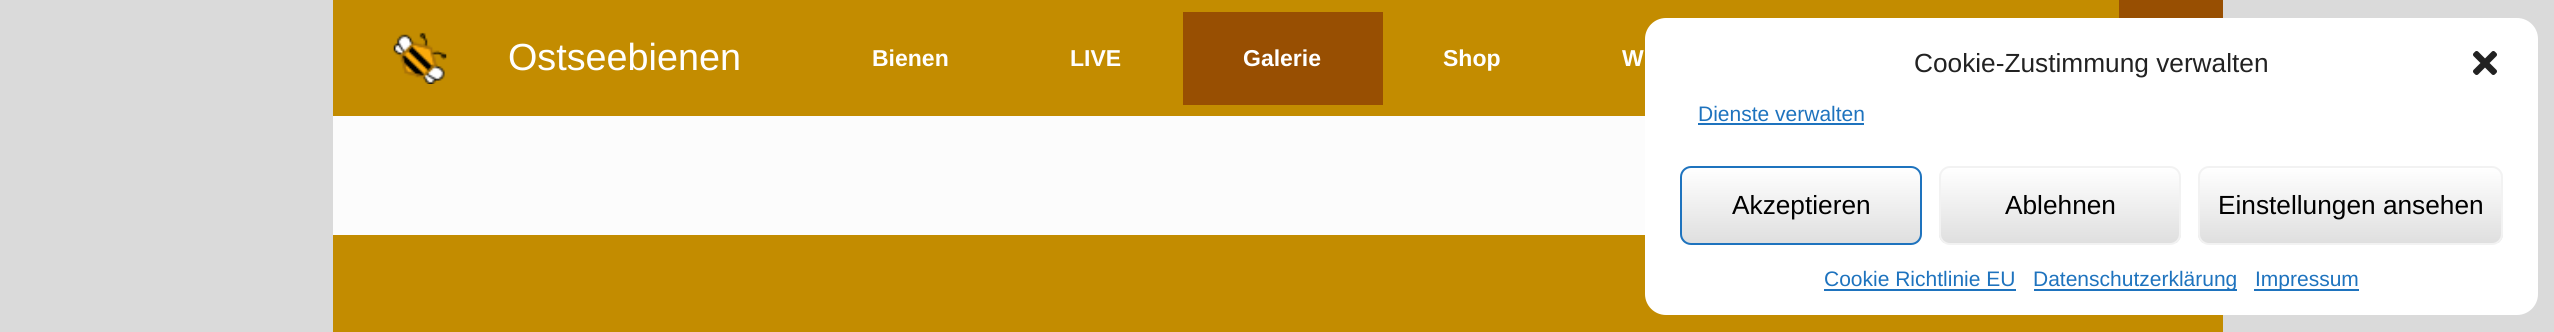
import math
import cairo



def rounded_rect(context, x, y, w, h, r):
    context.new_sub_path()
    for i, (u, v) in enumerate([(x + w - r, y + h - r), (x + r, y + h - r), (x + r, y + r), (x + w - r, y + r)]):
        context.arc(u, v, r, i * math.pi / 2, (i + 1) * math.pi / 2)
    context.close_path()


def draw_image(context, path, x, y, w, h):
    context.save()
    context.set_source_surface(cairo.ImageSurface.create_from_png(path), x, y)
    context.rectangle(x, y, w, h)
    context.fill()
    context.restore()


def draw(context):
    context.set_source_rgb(218 / 255, 218 / 255, 218 / 255)
    context.paint()
    context.set_source_rgb(195 / 255, 140 / 255, 0)
    context.rectangle(333, 0, 1786, 116)
    context.fill()
    context.set_source_rgb(152 / 255, 79 / 255, 2 / 255)
    context.rectangle(2119, 0, 104, 18)
    context.fill()
    draw_image(context, "images/1.png", 393, 32, 54, 52)
    context.rectangle(1183, 12, 200, 93)
    context.fill()
    context.set_source_rgb(252 / 255, 252 / 255, 252 / 255)
    context.rectangle(333, 116, 1312, 119)
    context.fill()
    context.set_source_rgb(195 / 255, 140 / 255, 0)
    context.rectangle(333, 235, 1890, 97)
    context.fill()
    context.set_source_rgb(1, 1, 1)
    rounded_rect(context, 1645, 18, 893, 297, 21)
    context.fill()
    draw_image(context, "images/2.png", 2473, 51, 24, 24)
    context.set_source_rgb(30 / 255, 115 / 255, 190 / 255)
    context.rectangle(1698, 123, 166, 2)
    context.fill()
    context.save()
    rounded_rect(context, 1680, 166, 242, 79, 11)
    context.clip()
    gradient = cairo.LinearGradient(1682, 243, 1682, 168)
    gradient.add_color_stop_rgba(0, 223 / 255, 223 / 255, 223 / 255, 1)
    gradient.add_color_stop_rgba(1, 1, 1, 1, 1)
    context.set_source(gradient)
    context.rectangle(1680, 168, 242, 75)
    context.fill()
    context.restore()
    rounded_rect(context, 1681, 167, 240, 77, 10)
    context.stroke()
    context.save()
    rounded_rect(context, 1939, 166, 242, 79, 11)
    context.clip()
    gradient = cairo.LinearGradient(1941, 243, 1941, 168)
    gradient.add_color_stop_rgba(0, 223 / 255, 223 / 255, 223 / 255, 1)
    gradient.add_color_stop_rgba(1, 1, 1, 1, 1)
    context.set_source(gradient)
    context.rectangle(1939, 168, 242, 75)
    context.fill()
    context.restore()
    rounded_rect(context, 1940, 167, 240, 77, 10)
    context.set_source_rgb(242 / 255, 242 / 255, 242 / 255)
    context.stroke()
    context.save()
    rounded_rect(context, 2198, 166, 305, 79, 11)
    context.clip()
    gradient = cairo.LinearGradient(2200, 243, 2200, 168)
    gradient.add_color_stop_rgba(0, 223 / 255, 223 / 255, 223 / 255, 1)
    gradient.add_color_stop_rgba(1, 1, 1, 1, 1)
    context.set_source(gradient)
    context.rectangle(2198, 168, 305, 75)
    context.fill()
    context.restore()
    rounded_rect(context, 2199, 167, 303, 77, 10)
    context.stroke()
    context.set_source_rgb(30 / 255, 115 / 255, 190 / 255)
    context.rectangle(1824, 289, 192, 2)
    context.fill()
    context.rectangle(2034, 289, 203, 2)
    context.fill()
    context.rectangle(2254, 289, 105, 2)
    context.fill()
    context.select_font_face("Liberation Sans")
    context.set_font_size(37.75)
    context.set_source_rgb(1, 1, 1)
    context.move_to(508, 70)
    context.show_text("Ostseebienen")
    context.select_font_face("Liberation Sans", cairo.FontSlant.NORMAL, cairo.FontWeight.BOLD)
    context.set_font_size(23)
    context.move_to(872, 66)
    context.show_text("Bienen")
    context.move_to(1070, 66)
    context.show_text("LIVE")
    context.move_to(1243, 66)
    context.show_text("Galerie")
    context.move_to(1443, 66)
    context.show_text("Shop")
    context.move_to(1622, 66)
    context.show_text("W")
    context.select_font_face("Liberation Sans")
    context.set_font_size(26.25)
    context.set_source_rgb(34 / 255, 34 / 255, 34 / 255)
    context.move_to(1914, 72)
    context.show_text("Cookie-Zustimmung verwalten")
    context.set_font_size(21)
    context.set_source_rgb(30 / 255, 115 / 255, 190 / 255)
    context.move_to(1698, 121)
    context.show_text("Dienste verwalten")
    context.set_font_size(26.25)
    context.set_source_rgb(0, 0, 0)
    context.move_to(1732, 214)
    context.show_text("Akzeptieren")
    context.move_to(2005, 214)
    context.show_text("Ablehnen")
    context.move_to(2218, 214)
    context.show_text("Einstellungen ansehen")
    context.set_font_size(21)
    context.set_source_rgb(30 / 255, 115 / 255, 190 / 255)
    context.move_to(1824, 286)
    context.show_text("Cookie Richtlinie EU")
    context.move_to(2033, 286)
    context.show_text("Datenschutzerklärung")
    context.move_to(2255, 286)
    context.show_text("Impressum")


surface = cairo.ImageSurface(cairo.Format.RGB24, 2554, 332)
context = cairo.Context(surface)
options = cairo.FontOptions()
options.set_hint_metrics(cairo.HintMetrics.OFF)
options.set_hint_style(cairo.HintStyle.NONE)
context.set_font_options(options)
context.set_miter_limit(4)
draw(context)
surface.write_to_png("out.png")
